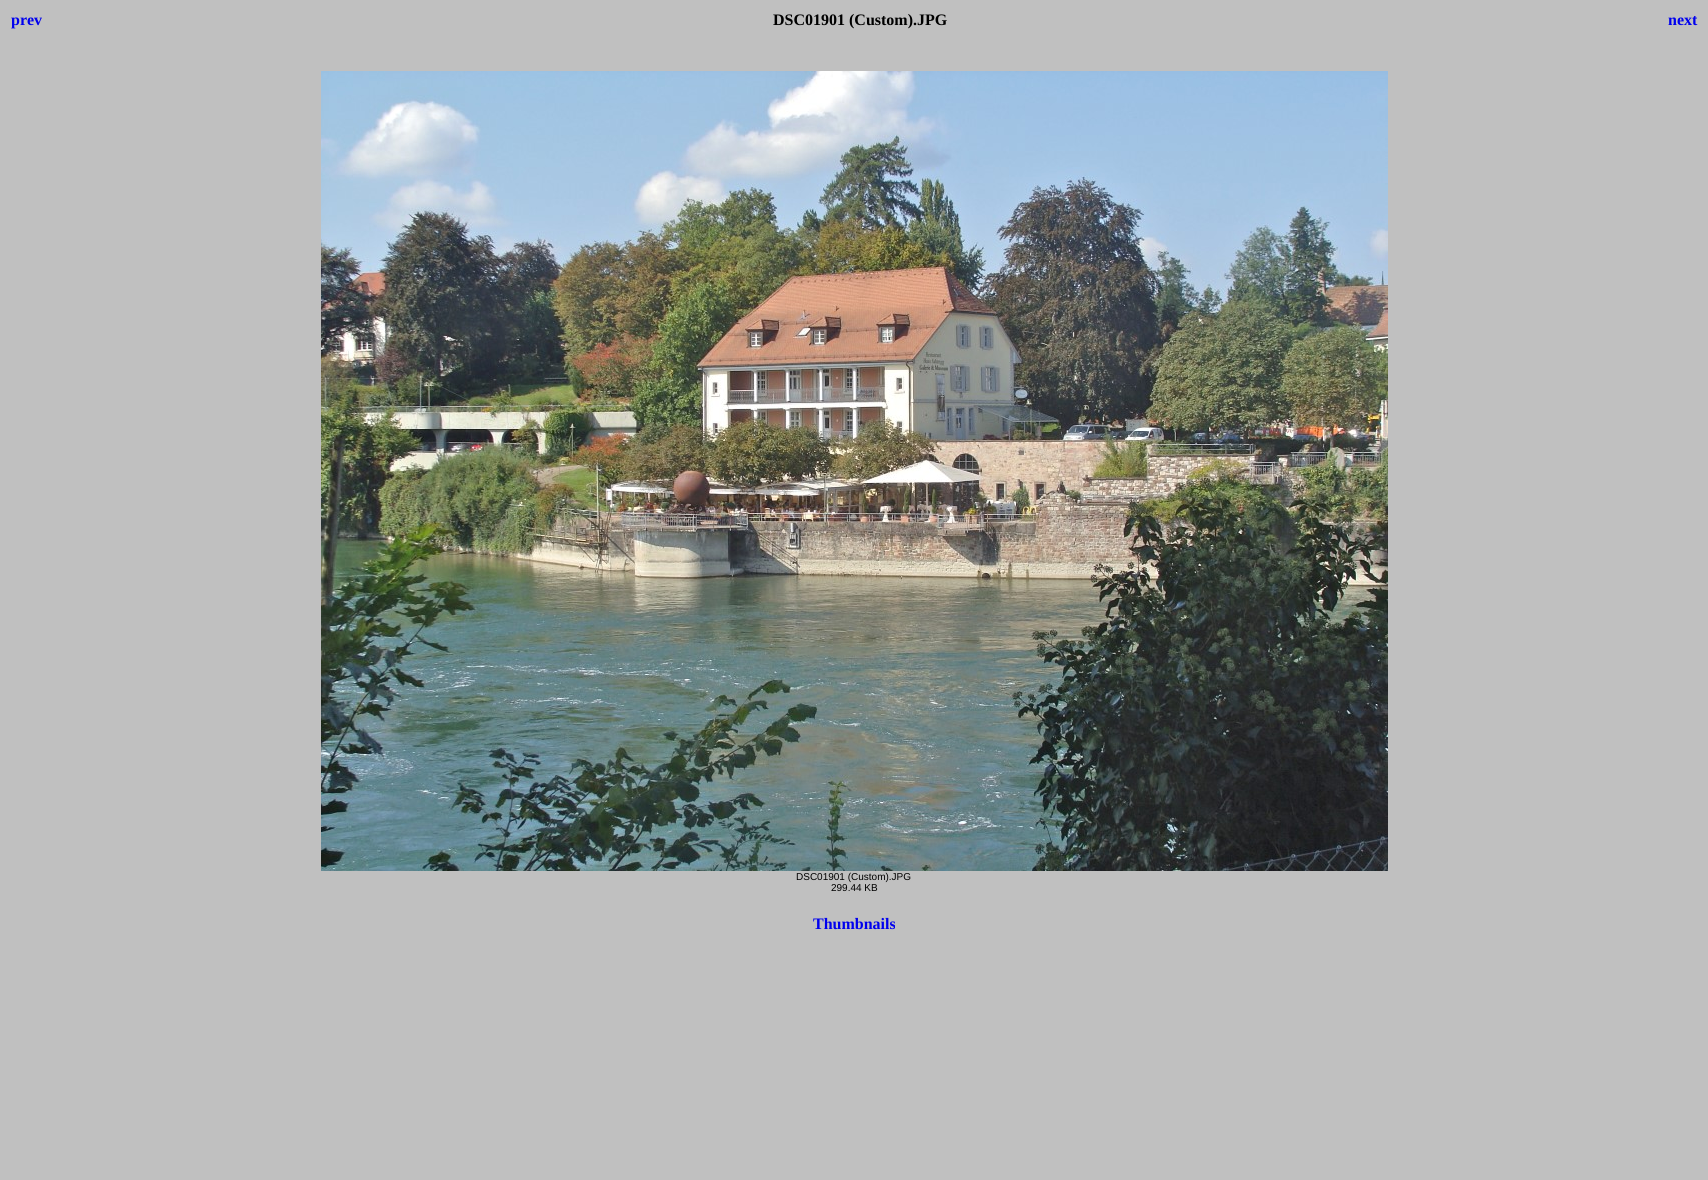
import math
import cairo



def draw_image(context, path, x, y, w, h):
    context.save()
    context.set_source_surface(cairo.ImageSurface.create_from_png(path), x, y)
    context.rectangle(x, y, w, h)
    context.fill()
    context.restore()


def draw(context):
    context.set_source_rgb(192 / 255, 192 / 255, 192 / 255)
    context.paint()
    draw_image(context, "images/1.png", 321, 71, 1067, 800)
    context.select_font_face("Liberation Serif", cairo.FontSlant.NORMAL, cairo.FontWeight.BOLD)
    context.set_font_size(16)
    context.set_source_rgb(0, 0, 238 / 255)
    context.move_to(11, 25)
    context.show_text("prev")
    context.set_source_rgb(0, 0, 0)
    context.move_to(773, 25)
    context.show_text("DSC01901 (Custom).JPG")
    context.set_source_rgb(0, 0, 238 / 255)
    context.move_to(1668, 25)
    context.show_text("next")
    context.select_font_face("Liberation Sans")
    context.set_font_size(10)
    context.set_source_rgb(0, 0, 0)
    context.move_to(796, 880)
    context.show_text("DSC01901 (Custom).JPG")
    context.move_to(831, 891)
    context.show_text("299.44 KB")
    context.select_font_face("Liberation Serif", cairo.FontSlant.NORMAL, cairo.FontWeight.BOLD)
    context.set_font_size(16)
    context.set_source_rgb(0, 0, 238 / 255)
    context.move_to(813, 929)
    context.show_text("Thumbnails")


surface = cairo.ImageSurface(cairo.Format.RGB24, 1708, 1180)
context = cairo.Context(surface)
options = cairo.FontOptions()
options.set_hint_metrics(cairo.HintMetrics.OFF)
options.set_hint_style(cairo.HintStyle.NONE)
context.set_font_options(options)
context.set_miter_limit(4)
draw(context)
surface.write_to_png("out.png")
